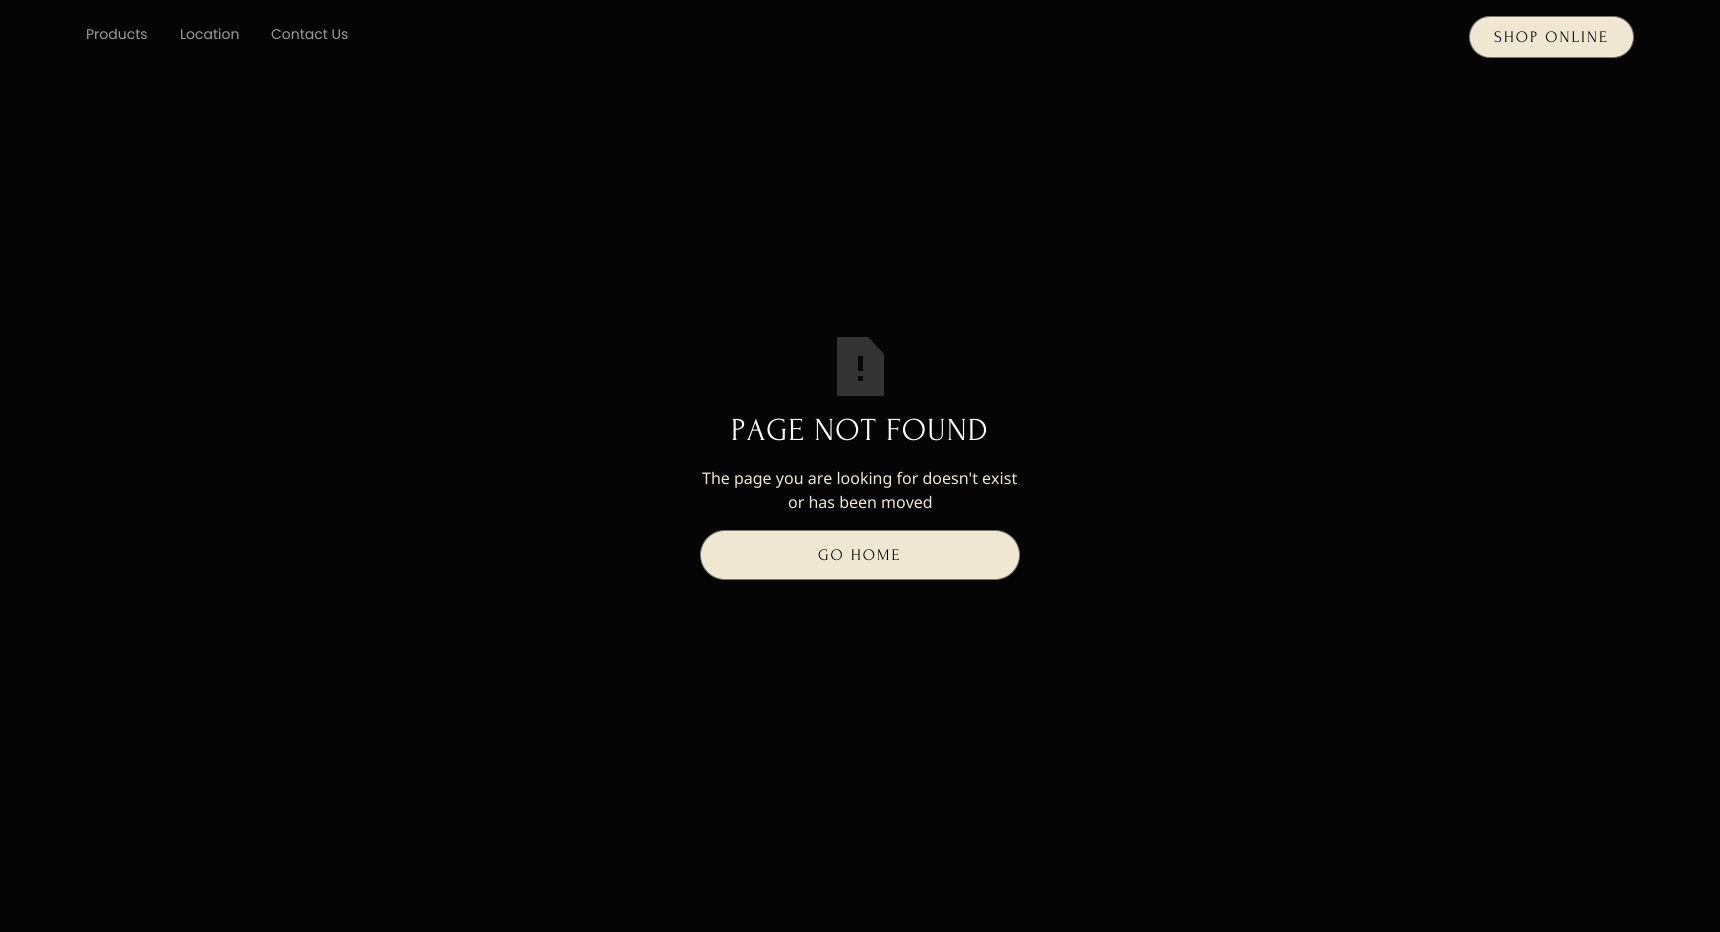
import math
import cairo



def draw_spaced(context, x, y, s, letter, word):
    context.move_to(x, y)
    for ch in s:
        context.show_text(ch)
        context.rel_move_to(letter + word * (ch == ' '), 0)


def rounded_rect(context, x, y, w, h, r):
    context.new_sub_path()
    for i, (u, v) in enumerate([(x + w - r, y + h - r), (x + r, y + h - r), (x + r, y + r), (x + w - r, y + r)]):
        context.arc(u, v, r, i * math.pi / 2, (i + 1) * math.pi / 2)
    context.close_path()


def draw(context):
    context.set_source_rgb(5 / 255, 5 / 255, 5 / 255)
    context.paint()
    context.set_source_rgb(239 / 255, 231 / 255, 210 / 255)
    rounded_rect(context, 1469.5, 16.5, 164, 41, 20.5)
    context.fill_preserve()
    context.set_source_rgb(120 / 255, 116 / 255, 105 / 255)
    context.set_line_width(1)
    context.stroke()
    context.set_source_rgb(51 / 255, 51 / 255, 51 / 255)
    context.set_fill_rule(cairo.FillRule.EVEN_ODD)
    context.new_path()
    context.move_to(837, 337)
    context.line_to(868, 337)
    context.line_to(884, 354)
    context.line_to(884, 396)
    context.line_to(837, 396)
    context.close_path()
    context.move_to(858, 356)
    context.line_to(863, 356)
    context.line_to(863, 371)
    context.line_to(858, 371)
    context.close_path()
    context.move_to(858, 376)
    context.line_to(863, 376)
    context.line_to(863, 381)
    context.line_to(858, 381)
    context.close_path()
    context.fill()
    context.set_source_rgb(239 / 255, 231 / 255, 210 / 255)
    rounded_rect(context, 700.5, 530.5, 319, 49, 24.5)
    context.fill_preserve()
    context.set_source_rgb(120 / 255, 116 / 255, 105 / 255)
    context.stroke()
    context.select_font_face("Poppins")
    context.set_font_size(14)
    context.set_source_rgb(155 / 255, 155 / 255, 155 / 255)
    context.move_to(86, 39)
    context.show_text("Products")
    context.move_to(180, 39)
    context.show_text("Location")
    context.move_to(271, 39)
    context.show_text("Contact Us")
    context.select_font_face("Forum")
    context.set_font_size(16)
    context.set_source_rgb(5 / 255, 5 / 255, 5 / 255)
    draw_spaced(context, 1494, 42, "SHOP ONLINE", 2, 0)
    context.set_font_size(32)
    context.set_source_rgb(1, 1, 1)
    draw_spaced(context, 731, 440, "PAGE NOT FOUND", 1, 0)
    context.select_font_face("Noto Sans")
    context.set_font_size(16)
    context.set_source_rgb(239 / 255, 231 / 255, 210 / 255)
    context.move_to(702, 484)
    context.show_text("The page you are looking for doesn't exist")
    context.move_to(788, 508)
    context.show_text("or has been moved")
    context.select_font_face("Forum")
    context.set_source_rgb(5 / 255, 5 / 255, 5 / 255)
    draw_spaced(context, 818, 560, "GO HOME", 2, 0)


surface = cairo.ImageSurface(cairo.Format.RGB24, 1720, 932)
context = cairo.Context(surface)
options = cairo.FontOptions()
options.set_hint_metrics(cairo.HintMetrics.OFF)
options.set_hint_style(cairo.HintStyle.NONE)
context.set_font_options(options)
context.set_miter_limit(4)
draw(context)
surface.write_to_png("out.png")
